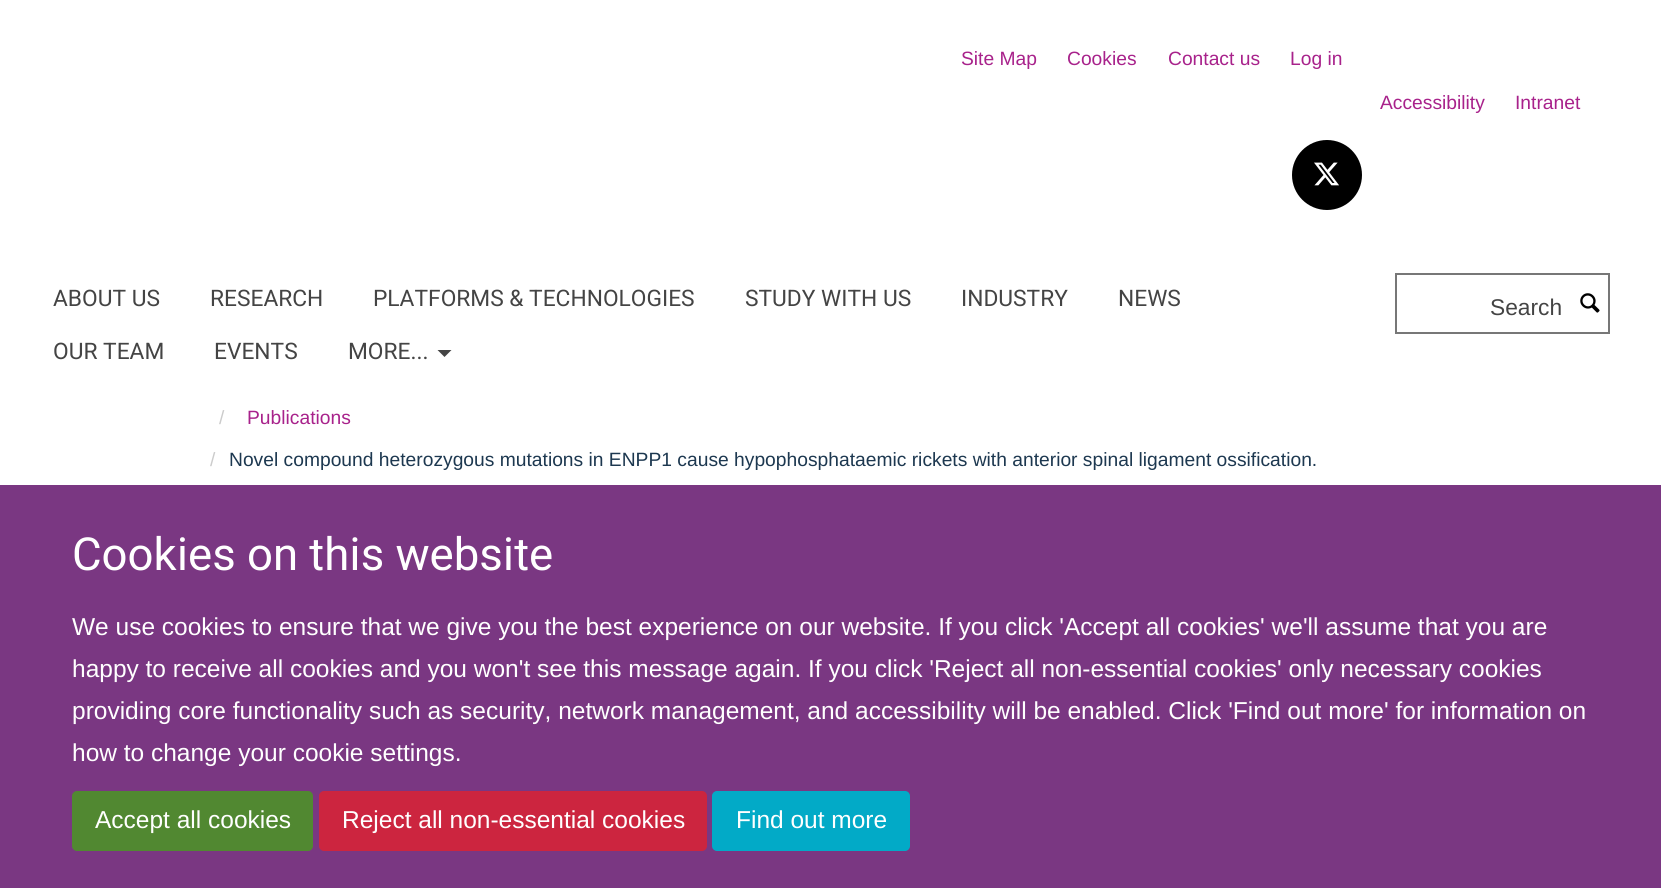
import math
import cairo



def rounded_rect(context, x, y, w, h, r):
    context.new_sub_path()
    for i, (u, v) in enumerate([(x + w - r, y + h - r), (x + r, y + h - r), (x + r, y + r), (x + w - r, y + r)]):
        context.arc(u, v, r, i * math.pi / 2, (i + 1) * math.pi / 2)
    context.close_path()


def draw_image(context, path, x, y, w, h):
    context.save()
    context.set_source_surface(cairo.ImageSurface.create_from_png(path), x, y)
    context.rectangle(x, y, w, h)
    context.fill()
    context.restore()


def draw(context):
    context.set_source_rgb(1, 1, 1)
    context.paint()
    context.set_source_rgb(0, 0, 0)
    context.arc(1327, 175, 35, 0, 2 * math.pi)
    context.fill()
    draw_image(context, "images/1.png", 1314, 162, 25, 24)
    context.set_source_rgb(68 / 255, 68 / 255, 68 / 255)
    context.new_path()
    context.move_to(437.5, 350)
    context.line_to(451.5, 350)
    context.line_to(444.5, 357)
    context.close_path()
    context.fill()
    context.rectangle(1396, 274, 213, 59)
    context.set_source_rgb(119 / 255, 119 / 255, 119 / 255)
    context.stroke()
    draw_image(context, "images/2.png", 1580, 293, 20, 20)
    context.set_source_rgb(122 / 255, 55 / 255, 130 / 255)
    context.rectangle(0, 485, 1661, 403)
    context.fill()
    context.set_source_rgb(81 / 255, 136 / 255, 49 / 255)
    rounded_rect(context, 73, 792, 239, 58, 4)
    context.fill_preserve()
    context.stroke()
    context.set_source_rgb(204 / 255, 37 / 255, 63 / 255)
    rounded_rect(context, 320, 792, 386, 58, 4)
    context.fill_preserve()
    context.stroke()
    context.set_source_rgb(2 / 255, 170 / 255, 199 / 255)
    rounded_rect(context, 713, 792, 196, 58, 4)
    context.fill_preserve()
    context.stroke()
    context.select_font_face("Liberation Sans")
    context.set_font_size(19.25)
    context.set_source_rgb(168 / 255, 34 / 255, 139 / 255)
    context.move_to(961, 65)
    context.show_text("Site Map")
    context.move_to(1067, 65)
    context.show_text("Cookies")
    context.move_to(1168, 65)
    context.show_text("Contact us")
    context.move_to(1290, 65)
    context.show_text("Log in")
    context.move_to(1380, 109)
    context.show_text("Accessibility")
    context.move_to(1515, 109)
    context.show_text("Intranet")
    context.select_font_face("Heebo")
    context.set_font_size(22.75)
    context.set_source_rgb(68 / 255, 68 / 255, 68 / 255)
    context.move_to(53, 306)
    context.show_text("ABOUT US")
    context.move_to(210, 306)
    context.show_text("RESEARCH")
    context.move_to(373, 306)
    context.show_text("PLATFORMS & TECHNOLOGIES")
    context.move_to(745, 306)
    context.show_text("STUDY WITH US")
    context.move_to(961, 306)
    context.show_text("INDUSTRY")
    context.move_to(1118, 306)
    context.show_text("NEWS")
    context.move_to(53, 359)
    context.show_text("OUR TEAM")
    context.move_to(214, 359)
    context.show_text("EVENTS")
    context.move_to(348, 359)
    context.show_text("MORE...")
    context.select_font_face("Liberation Sans")
    context.move_to(1490, 315)
    context.show_text("Search")
    context.set_font_size(19.25)
    context.set_source_rgb(204 / 255, 204 / 255, 204 / 255)
    context.move_to(219, 424)
    context.show_text("/")
    context.set_source_rgb(168 / 255, 34 / 255, 139 / 255)
    context.move_to(247, 424)
    context.show_text("Publications")
    context.set_source_rgb(204 / 255, 204 / 255, 204 / 255)
    context.move_to(210, 466)
    context.show_text("/")
    context.set_source_rgb(29 / 255, 56 / 255, 80 / 255)
    context.move_to(229, 466)
    context.show_text("Novel compound heterozygous mutations in ENPP1 cause hypophosphataemic rickets with anterior spinal ligament ossification.")
    context.select_font_face("Heebo")
    context.set_font_size(45.5)
    context.set_source_rgb(1, 1, 1)
    context.move_to(72, 570)
    context.show_text("Cookies on this website")
    context.select_font_face("Liberation Sans")
    context.set_font_size(24.5)
    context.move_to(72, 635)
    context.show_text("We use cookies to ensure that we give you the best experience on our website. If you click 'Accept all cookies' we'll assume that you are")
    context.move_to(72, 677)
    context.show_text("happy to receive all cookies and you won't see this message again. If you click 'Reject all non-essential cookies' only necessary cookies")
    context.move_to(72, 719)
    context.show_text("providing core functionality such as security, network management, and accessibility will be enabled. Click 'Find out more' for information on")
    context.move_to(72, 761)
    context.show_text("how to change your cookie settings.")
    context.move_to(95, 828)
    context.show_text("Accept all cookies")
    context.move_to(342, 828)
    context.show_text("Reject all non-essential cookies")
    context.move_to(736, 828)
    context.show_text("Find out more")


surface = cairo.ImageSurface(cairo.Format.RGB24, 1661, 888)
context = cairo.Context(surface)
options = cairo.FontOptions()
options.set_hint_metrics(cairo.HintMetrics.OFF)
options.set_hint_style(cairo.HintStyle.NONE)
context.set_font_options(options)
context.set_miter_limit(4)
draw(context)
surface.write_to_png("out.png")
